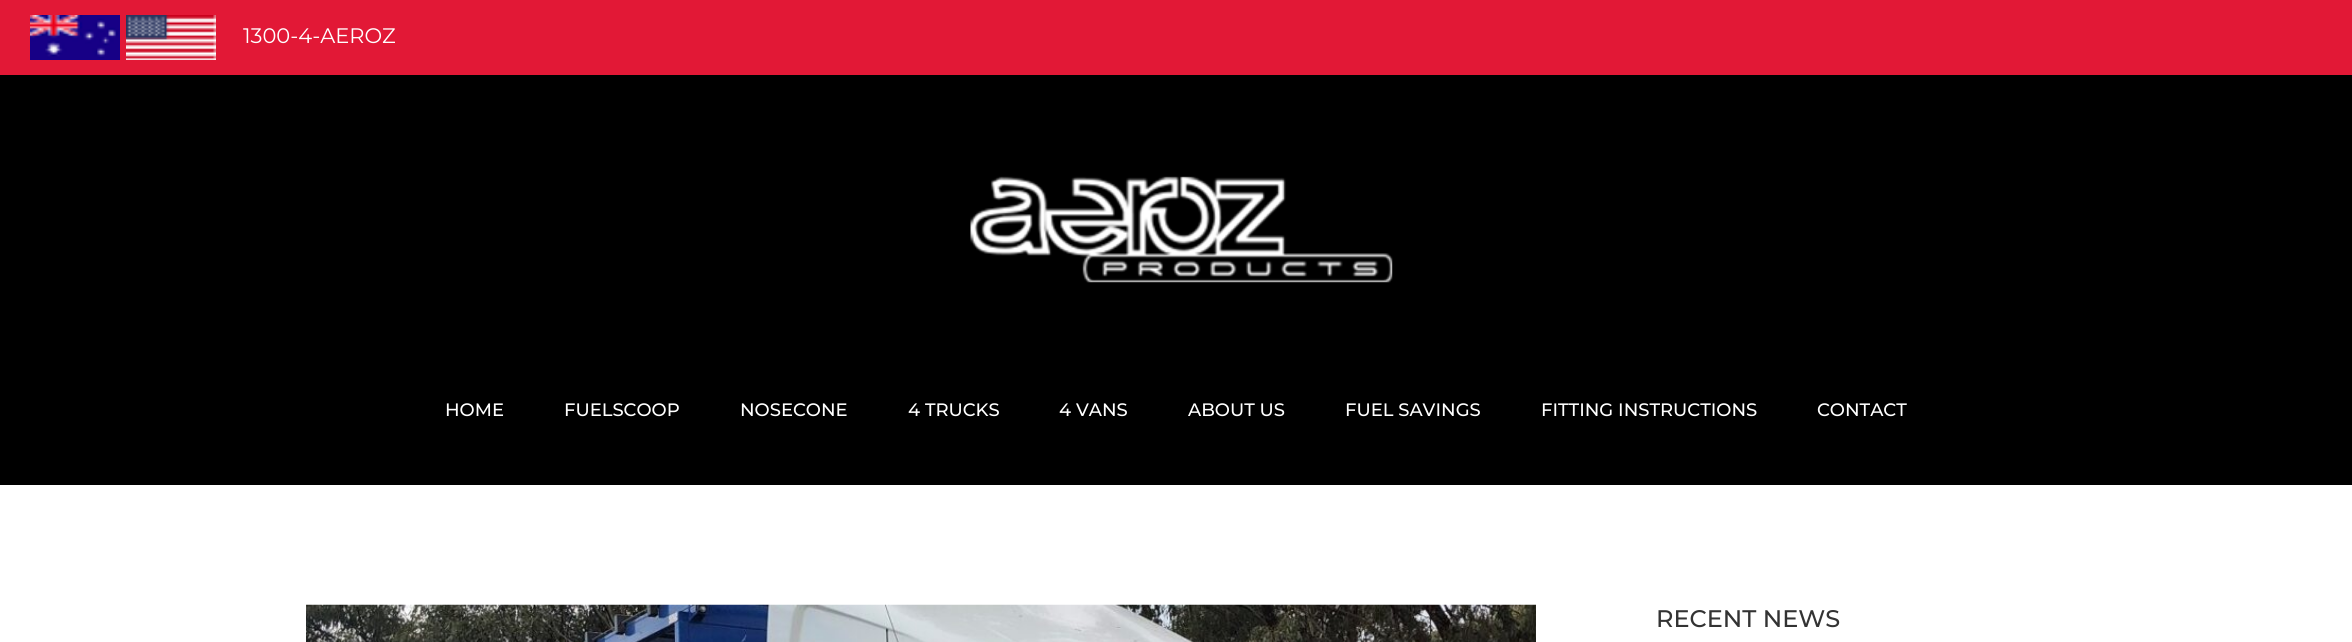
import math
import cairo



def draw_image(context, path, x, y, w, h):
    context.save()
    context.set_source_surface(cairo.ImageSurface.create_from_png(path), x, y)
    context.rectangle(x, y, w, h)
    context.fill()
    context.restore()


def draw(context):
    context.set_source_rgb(0, 0, 0)
    context.paint()
    context.set_source_rgb(226 / 255, 24 / 255, 54 / 255)
    context.rectangle(0, 0, 2352, 75)
    context.fill()
    draw_image(context, "images/1.png", 30, 15, 90, 45)
    draw_image(context, "images/2.png", 126, 15, 90, 45)
    draw_image(context, "images/3.png", 970, 176, 423, 107)
    context.set_source_rgb(1, 1, 1)
    context.rectangle(0, 485, 2352, 157)
    context.fill()
    draw_image(context, "images/4.png", 306, 604, 1230, 38)
    context.select_font_face("Montserrat")
    context.set_font_size(21)
    context.move_to(243, 43)
    context.show_text("1300-4-AEROZ")
    context.select_font_face("Montserrat Medium")
    context.set_font_size(18)
    context.move_to(445, 416)
    context.show_text("HOME")
    context.move_to(564, 416)
    context.show_text("FUELSCOOP")
    context.move_to(740, 416)
    context.show_text("NOSECONE")
    context.move_to(908, 416)
    context.show_text("4 TRUCKS")
    context.move_to(1059, 416)
    context.show_text("4 VANS")
    context.move_to(1188, 416)
    context.show_text("ABOUT US")
    context.move_to(1345, 416)
    context.show_text("FUEL SAVINGS")
    context.move_to(1541, 416)
    context.show_text("FITTING INSTRUCTIONS")
    context.move_to(1817, 416)
    context.show_text("CONTACT")
    context.set_font_size(24)
    context.set_source_rgb(51 / 255, 51 / 255, 51 / 255)
    context.move_to(1656, 627)
    context.show_text("RECENT NEWS")


surface = cairo.ImageSurface(cairo.Format.RGB24, 2352, 642)
context = cairo.Context(surface)
options = cairo.FontOptions()
options.set_hint_metrics(cairo.HintMetrics.OFF)
options.set_hint_style(cairo.HintStyle.NONE)
context.set_font_options(options)
context.set_miter_limit(4)
draw(context)
surface.write_to_png("out.png")
